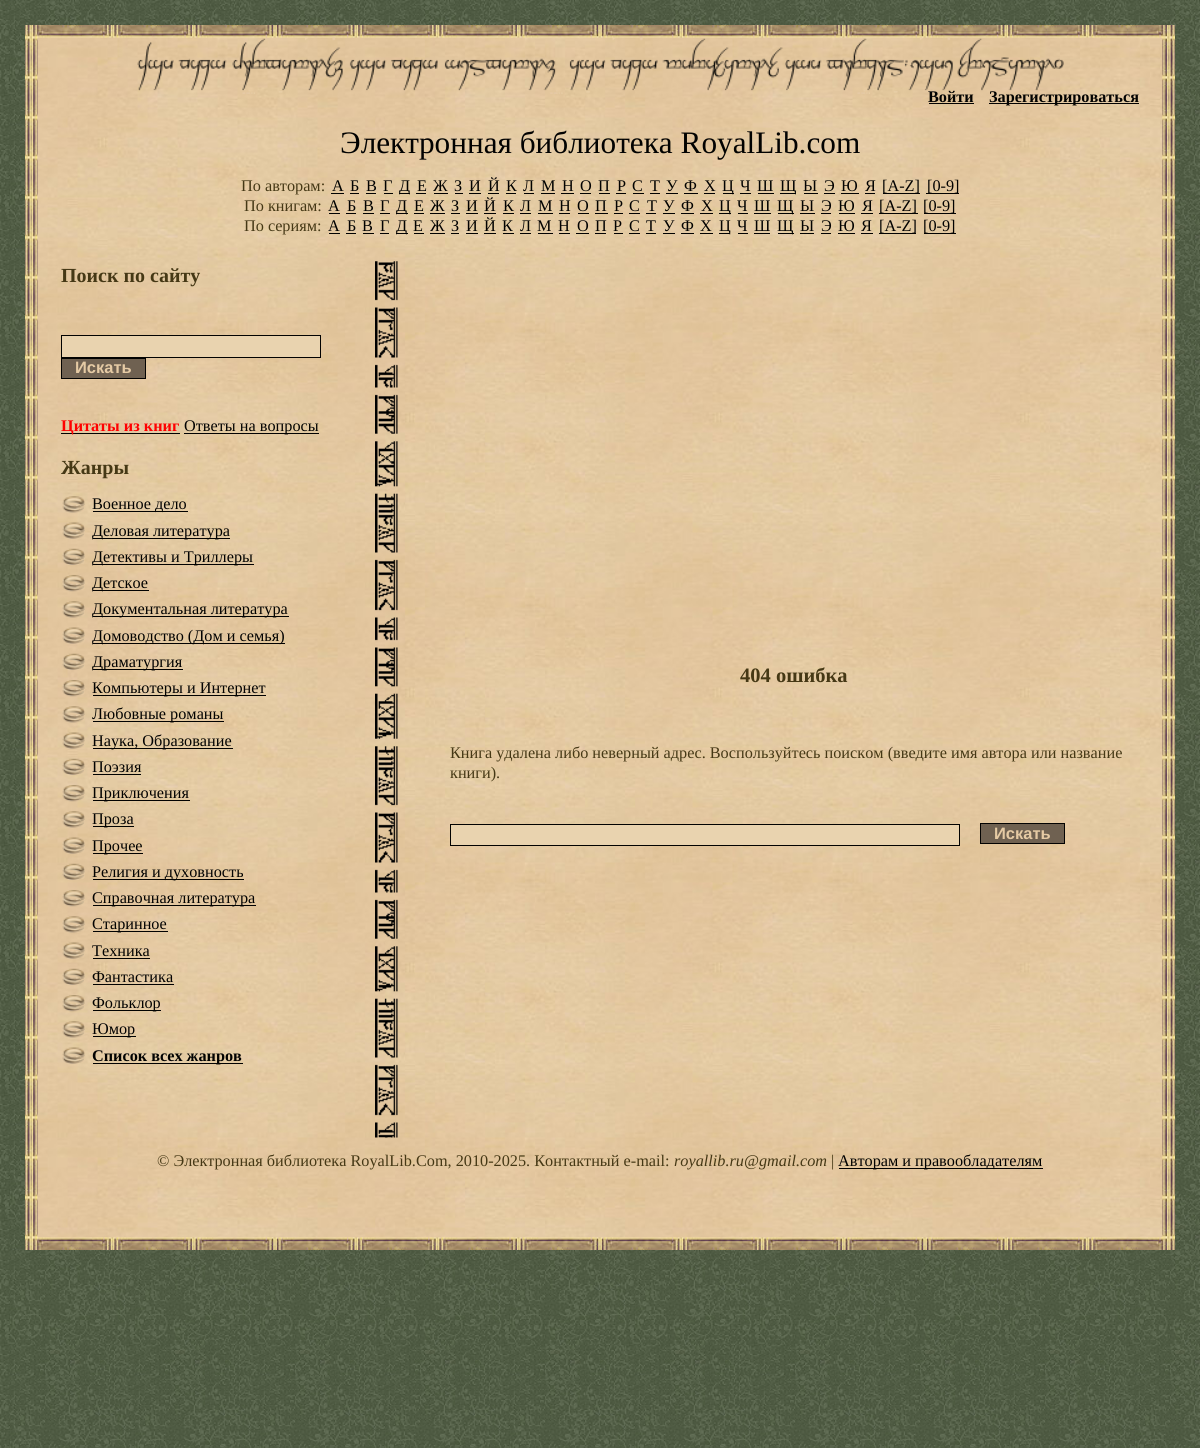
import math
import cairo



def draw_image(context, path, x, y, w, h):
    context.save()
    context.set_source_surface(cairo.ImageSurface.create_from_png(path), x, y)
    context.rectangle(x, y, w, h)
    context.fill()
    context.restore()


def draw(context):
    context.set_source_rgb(1, 1, 1)
    context.paint()
    draw_image(context, "images/1.png", 0, 0, 1200, 1448)
    draw_image(context, "images/2.png", 25, 25, 1150, 1225)
    draw_image(context, "images/3.png", 37, 37, 1126, 1201)
    draw_image(context, "images/4.png", 137, 37, 927, 57)
    context.set_source_rgb(2 / 255, 2 / 255, 1 / 255)
    context.rectangle(929, 103, 45, 1)
    context.fill()
    context.rectangle(989, 103, 150, 1)
    context.fill()
    context.rectangle(331, 193, 13, 1)
    context.fill()
    context.rectangle(350, 193, 9, 1)
    context.fill()
    context.rectangle(366, 193, 10, 1)
    context.fill()
    context.rectangle(384, 193, 9, 1)
    context.fill()
    context.rectangle(399, 193, 11, 1)
    context.fill()
    context.rectangle(416, 193, 10, 1)
    context.fill()
    context.rectangle(434, 193, 14, 1)
    context.fill()
    context.rectangle(455, 193, 8, 1)
    context.fill()
    context.rectangle(469, 193, 12, 1)
    context.fill()
    context.rectangle(488, 193, 11, 1)
    context.fill()
    context.rectangle(506, 193, 10, 1)
    context.fill()
    context.rectangle(524, 193, 10, 1)
    context.fill()
    context.rectangle(541, 193, 14, 1)
    context.fill()
    context.rectangle(561, 193, 13, 1)
    context.fill()
    context.rectangle(580, 193, 11, 1)
    context.fill()
    context.rectangle(599, 193, 11, 1)
    context.fill()
    context.rectangle(616, 193, 10, 1)
    context.fill()
    context.rectangle(633, 193, 11, 1)
    context.fill()
    context.rectangle(650, 193, 10, 1)
    context.fill()
    context.rectangle(666, 193, 12, 1)
    context.fill()
    context.rectangle(684, 193, 14, 1)
    context.fill()
    context.rectangle(704, 193, 11, 1)
    context.fill()
    context.rectangle(723, 193, 11, 1)
    context.fill()
    context.rectangle(740, 193, 11, 1)
    context.fill()
    context.rectangle(758, 193, 16, 1)
    context.fill()
    context.rectangle(780, 193, 16, 1)
    context.fill()
    context.rectangle(804, 193, 14, 1)
    context.fill()
    context.rectangle(824, 193, 11, 1)
    context.fill()
    context.rectangle(841, 193, 18, 1)
    context.fill()
    context.rectangle(865, 193, 10, 1)
    context.fill()
    context.rectangle(883, 193, 37, 1)
    context.fill()
    context.rectangle(926, 193, 33, 1)
    context.fill()
    context.rectangle(329, 213, 11, 1)
    context.fill()
    context.rectangle(346, 213, 10, 1)
    context.fill()
    context.rectangle(363, 213, 11, 1)
    context.fill()
    context.rectangle(380, 213, 10, 1)
    context.fill()
    context.rectangle(396, 213, 12, 1)
    context.fill()
    context.rectangle(414, 213, 10, 1)
    context.fill()
    context.rectangle(430, 213, 15, 1)
    context.fill()
    context.rectangle(451, 213, 9, 1)
    context.fill()
    context.rectangle(466, 213, 12, 1)
    context.fill()
    context.rectangle(484, 213, 12, 1)
    context.fill()
    context.rectangle(503, 213, 11, 1)
    context.fill()
    context.rectangle(520, 213, 11, 1)
    context.fill()
    context.rectangle(538, 213, 15, 1)
    context.fill()
    context.rectangle(559, 213, 11, 1)
    context.fill()
    context.rectangle(578, 213, 11, 1)
    context.fill()
    context.rectangle(595, 213, 13, 1)
    context.fill()
    context.rectangle(614, 213, 9, 1)
    context.fill()
    context.rectangle(629, 213, 11, 1)
    context.fill()
    context.rectangle(646, 213, 10, 1)
    context.fill()
    context.rectangle(663, 213, 12, 1)
    context.fill()
    context.rectangle(681, 213, 13, 1)
    context.fill()
    context.rectangle(700, 213, 13, 1)
    context.fill()
    context.rectangle(719, 213, 12, 1)
    context.fill()
    context.rectangle(738, 213, 10, 1)
    context.fill()
    context.rectangle(754, 213, 17, 1)
    context.fill()
    context.rectangle(778, 213, 16, 1)
    context.fill()
    context.rectangle(800, 213, 15, 1)
    context.fill()
    context.rectangle(821, 213, 10, 1)
    context.fill()
    context.rectangle(839, 213, 16, 1)
    context.fill()
    context.rectangle(861, 213, 12, 1)
    context.fill()
    context.rectangle(879, 213, 39, 1)
    context.fill()
    context.rectangle(924, 213, 32, 1)
    context.fill()
    context.rectangle(329, 233, 11, 1)
    context.fill()
    context.rectangle(346, 233, 10, 1)
    context.fill()
    context.rectangle(363, 233, 11, 1)
    context.fill()
    context.rectangle(380, 233, 9, 1)
    context.fill()
    context.rectangle(396, 233, 12, 1)
    context.fill()
    context.rectangle(414, 233, 10, 1)
    context.fill()
    context.rectangle(430, 233, 15, 1)
    context.fill()
    context.rectangle(451, 233, 8, 1)
    context.fill()
    context.rectangle(466, 233, 12, 1)
    context.fill()
    context.rectangle(484, 233, 12, 1)
    context.fill()
    context.rectangle(503, 233, 11, 1)
    context.fill()
    context.rectangle(520, 233, 11, 1)
    context.fill()
    context.rectangle(538, 233, 15, 1)
    context.fill()
    context.rectangle(559, 233, 11, 1)
    context.fill()
    context.rectangle(576, 233, 13, 1)
    context.fill()
    context.rectangle(595, 233, 11, 1)
    context.fill()
    context.rectangle(614, 233, 9, 1)
    context.fill()
    context.rectangle(629, 233, 11, 1)
    context.fill()
    context.rectangle(646, 233, 10, 1)
    context.fill()
    context.rectangle(663, 233, 12, 1)
    context.fill()
    context.rectangle(681, 233, 13, 1)
    context.fill()
    context.rectangle(700, 233, 13, 1)
    context.fill()
    context.rectangle(719, 233, 11, 1)
    context.fill()
    context.rectangle(738, 233, 10, 1)
    context.fill()
    context.rectangle(754, 233, 16, 1)
    context.fill()
    context.rectangle(778, 233, 16, 1)
    context.fill()
    context.rectangle(800, 233, 14, 1)
    context.fill()
    context.rectangle(821, 233, 10, 1)
    context.fill()
    context.rectangle(838, 233, 17, 1)
    context.fill()
    context.rectangle(861, 233, 12, 1)
    context.fill()
    context.rectangle(879, 233, 37, 1)
    context.fill()
    context.rectangle(924, 233, 32, 1)
    context.fill()
    draw_image(context, "images/5.png", 375, 261, 23, 877)
    context.set_source_rgb(233 / 255, 211 / 255, 175 / 255)
    context.rectangle(61.5, 335.5, 259, 22)
    context.fill_preserve()
    context.set_source_rgb(2 / 255, 2 / 255, 1 / 255)
    context.set_line_width(1)
    context.stroke()
    context.set_source_rgb(111 / 255, 97 / 255, 81 / 255)
    context.rectangle(61.5, 358.5, 84, 20)
    context.fill_preserve()
    context.set_source_rgb(2 / 255, 2 / 255, 1 / 255)
    context.stroke()
    context.rectangle(61, 433, 119, 1)
    context.fill()
    context.rectangle(184, 433, 135, 1)
    context.fill()
    draw_image(context, "images/6.png", 62, 496, 23, 17)
    context.rectangle(93, 511, 95, 1)
    context.fill()
    draw_image(context, "images/7.png", 62, 522, 23, 17)
    context.rectangle(93, 538, 137, 1)
    context.fill()
    draw_image(context, "images/8.png", 62, 548, 23, 17)
    context.rectangle(93, 564, 161, 1)
    context.fill()
    draw_image(context, "images/9.png", 62, 575, 23, 17)
    context.rectangle(93, 590, 56, 1)
    context.fill()
    draw_image(context, "images/10.png", 62, 601, 23, 17)
    context.rectangle(93, 616, 196, 1)
    context.fill()
    draw_image(context, "images/11.png", 62, 627, 23, 17)
    context.rectangle(93, 643, 192, 1)
    context.fill()
    draw_image(context, "images/12.png", 62, 653, 23, 17)
    context.rectangle(93, 669, 90, 1)
    context.fill()
    draw_image(context, "images/13.png", 62, 680, 23, 17)
    context.rectangle(93, 695, 173, 1)
    context.fill()
    draw_image(context, "images/14.png", 62, 706, 23, 17)
    context.rectangle(93, 721, 131, 1)
    context.fill()
    draw_image(context, "images/15.png", 62, 732, 23, 17)
    context.rectangle(93, 748, 140, 1)
    context.fill()
    draw_image(context, "images/16.png", 62, 758, 23, 17)
    context.rectangle(93, 774, 48, 1)
    context.fill()
    draw_image(context, "images/17.png", 62, 785, 23, 17)
    context.rectangle(93, 800, 97, 1)
    context.fill()
    draw_image(context, "images/18.png", 62, 811, 23, 17)
    context.rectangle(93, 826, 41, 1)
    context.fill()
    draw_image(context, "images/19.png", 62, 837, 23, 17)
    context.rectangle(93, 853, 50, 1)
    context.fill()
    draw_image(context, "images/20.png", 62, 863, 23, 17)
    context.rectangle(93, 879, 151, 1)
    context.fill()
    draw_image(context, "images/21.png", 62, 890, 23, 17)
    context.rectangle(93, 905, 163, 1)
    context.fill()
    draw_image(context, "images/22.png", 62, 916, 23, 17)
    context.rectangle(93, 931, 75, 1)
    context.fill()
    draw_image(context, "images/23.png", 62, 942, 23, 17)
    context.rectangle(93, 958, 57, 1)
    context.fill()
    draw_image(context, "images/24.png", 62, 968, 23, 17)
    context.rectangle(93, 984, 81, 1)
    context.fill()
    draw_image(context, "images/25.png", 62, 995, 23, 17)
    context.rectangle(93, 1010, 68, 1)
    context.fill()
    draw_image(context, "images/26.png", 62, 1021, 23, 17)
    context.rectangle(93, 1036, 43, 1)
    context.fill()
    draw_image(context, "images/27.png", 62, 1047, 23, 17)
    context.rectangle(93, 1063, 150, 1)
    context.fill()
    context.set_source_rgb(233 / 255, 211 / 255, 175 / 255)
    context.rectangle(450.5, 824.5, 509, 21)
    context.fill_preserve()
    context.set_source_rgb(2 / 255, 2 / 255, 1 / 255)
    context.stroke()
    context.set_source_rgb(111 / 255, 97 / 255, 81 / 255)
    context.rectangle(980.5, 823.5, 84, 20)
    context.fill_preserve()
    context.set_source_rgb(2 / 255, 2 / 255, 1 / 255)
    context.stroke()
    context.rectangle(839, 1168, 204, 1)
    context.fill()
    context.select_font_face("Liberation Serif", cairo.FontSlant.NORMAL, cairo.FontWeight.BOLD)
    context.set_font_size(16.25)
    context.move_to(928, 102)
    context.show_text("Войти")
    context.move_to(989, 102)
    context.show_text("Зарегистрироваться")
    context.select_font_face("Liberation Serif")
    context.set_font_size(31.25)
    context.move_to(340, 153)
    context.show_text("Электронная библиотека RoyalLib.com")
    context.set_font_size(16.25)
    context.set_source_rgb(69 / 255, 56 / 255, 21 / 255)
    context.move_to(241, 191)
    context.show_text("По авторам:")
    context.set_source_rgb(2 / 255, 2 / 255, 1 / 255)
    context.move_to(332, 191)
    context.show_text("А")
    context.move_to(350, 191)
    context.show_text("Б")
    context.move_to(366, 191)
    context.show_text("В")
    context.move_to(383, 191)
    context.show_text("Г")
    context.move_to(399, 191)
    context.show_text("Д")
    context.move_to(417, 191)
    context.show_text("Е")
    context.move_to(433, 191)
    context.show_text("Ж")
    context.move_to(454, 191)
    context.show_text("З")
    context.move_to(469, 191)
    context.show_text("И")
    context.move_to(488, 191)
    context.show_text("Й")
    context.move_to(506, 191)
    context.show_text("К")
    context.move_to(523, 191)
    context.show_text("Л")
    context.move_to(541, 191)
    context.show_text("М")
    context.move_to(562, 191)
    context.show_text("Н")
    context.move_to(580, 191)
    context.show_text("О")
    context.move_to(598, 191)
    context.show_text("П")
    context.move_to(617, 191)
    context.show_text("Р")
    context.move_to(632, 191)
    context.show_text("С")
    context.move_to(650, 191)
    context.show_text("Т")
    context.move_to(666, 191)
    context.show_text("У")
    context.move_to(684, 191)
    context.show_text("Ф")
    context.move_to(704, 191)
    context.show_text("Х")
    context.move_to(722, 191)
    context.show_text("Ц")
    context.move_to(740, 191)
    context.show_text("Ч")
    context.move_to(757, 191)
    context.show_text("Ш")
    context.move_to(780, 191)
    context.show_text("Щ")
    context.move_to(803, 191)
    context.show_text("Ы")
    context.move_to(824, 191)
    context.show_text("Э")
    context.move_to(841, 191)
    context.show_text("Ю")
    context.move_to(865, 191)
    context.show_text("Я")
    context.move_to(882, 191)
    context.show_text("[A-Z]")
    context.move_to(927, 191)
    context.show_text("[0-9]")
    context.set_source_rgb(69 / 255, 56 / 255, 21 / 255)
    context.move_to(244, 211)
    context.show_text("По книгам:")
    context.set_source_rgb(2 / 255, 2 / 255, 1 / 255)
    context.move_to(328, 211)
    context.show_text("А")
    context.move_to(347, 211)
    context.show_text("Б")
    context.move_to(363, 211)
    context.show_text("В")
    context.move_to(380, 211)
    context.show_text("Г")
    context.move_to(396, 211)
    context.show_text("Д")
    context.move_to(414, 211)
    context.show_text("Е")
    context.move_to(430, 211)
    context.show_text("Ж")
    context.move_to(451, 211)
    context.show_text("З")
    context.move_to(466, 211)
    context.show_text("И")
    context.move_to(484, 211)
    context.show_text("Й")
    context.move_to(503, 211)
    context.show_text("К")
    context.move_to(520, 211)
    context.show_text("Л")
    context.move_to(538, 211)
    context.show_text("М")
    context.move_to(559, 211)
    context.show_text("Н")
    context.move_to(577, 211)
    context.show_text("О")
    context.move_to(595, 211)
    context.show_text("П")
    context.move_to(614, 211)
    context.show_text("Р")
    context.move_to(629, 211)
    context.show_text("С")
    context.move_to(647, 211)
    context.show_text("Т")
    context.move_to(663, 211)
    context.show_text("У")
    context.move_to(681, 211)
    context.show_text("Ф")
    context.move_to(701, 211)
    context.show_text("Х")
    context.move_to(719, 211)
    context.show_text("Ц")
    context.move_to(737, 211)
    context.show_text("Ч")
    context.move_to(754, 211)
    context.show_text("Ш")
    context.move_to(777, 211)
    context.show_text("Щ")
    context.move_to(800, 211)
    context.show_text("Ы")
    context.move_to(821, 211)
    context.show_text("Э")
    context.move_to(838, 211)
    context.show_text("Ю")
    context.move_to(862, 211)
    context.show_text("Я")
    context.move_to(879, 211)
    context.show_text("[A-Z]")
    context.move_to(923, 211)
    context.show_text("[0-9]")
    context.set_source_rgb(69 / 255, 56 / 255, 21 / 255)
    context.move_to(244, 231)
    context.show_text("По сериям:")
    context.set_source_rgb(2 / 255, 2 / 255, 1 / 255)
    context.move_to(328, 231)
    context.show_text("А")
    context.move_to(347, 231)
    context.show_text("Б")
    context.move_to(362, 231)
    context.show_text("В")
    context.move_to(380, 231)
    context.show_text("Г")
    context.move_to(396, 231)
    context.show_text("Д")
    context.move_to(413, 231)
    context.show_text("Е")
    context.move_to(430, 231)
    context.show_text("Ж")
    context.move_to(451, 231)
    context.show_text("З")
    context.move_to(466, 231)
    context.show_text("И")
    context.move_to(484, 231)
    context.show_text("Й")
    context.move_to(502, 231)
    context.show_text("К")
    context.move_to(520, 231)
    context.show_text("Л")
    context.move_to(537, 231)
    context.show_text("М")
    context.move_to(558, 231)
    context.show_text("Н")
    context.move_to(577, 231)
    context.show_text("О")
    context.move_to(595, 231)
    context.show_text("П")
    context.move_to(613, 231)
    context.show_text("Р")
    context.move_to(629, 231)
    context.show_text("С")
    context.move_to(646, 231)
    context.show_text("Т")
    context.move_to(663, 231)
    context.show_text("У")
    context.move_to(681, 231)
    context.show_text("Ф")
    context.move_to(700, 231)
    context.show_text("Х")
    context.move_to(719, 231)
    context.show_text("Ц")
    context.move_to(737, 231)
    context.show_text("Ч")
    context.move_to(754, 231)
    context.show_text("Ш")
    context.move_to(777, 231)
    context.show_text("Щ")
    context.move_to(800, 231)
    context.show_text("Ы")
    context.move_to(821, 231)
    context.show_text("Э")
    context.move_to(838, 231)
    context.show_text("Ю")
    context.move_to(861, 231)
    context.show_text("Я")
    context.move_to(879, 231)
    context.show_text("[A-Z]")
    context.move_to(923, 231)
    context.show_text("[0-9]")
    context.select_font_face("Liberation Serif", cairo.FontSlant.NORMAL, cairo.FontWeight.BOLD)
    context.set_font_size(20)
    context.set_source_rgb(69 / 255, 56 / 255, 21 / 255)
    context.move_to(61, 282)
    context.show_text("Поиск по сайту")
    context.select_font_face("Liberation Sans", cairo.FontSlant.NORMAL, cairo.FontWeight.BOLD)
    context.set_font_size(16.5)
    context.set_source_rgb(229 / 255, 202 / 255, 164 / 255)
    context.move_to(75, 373)
    context.show_text("Искать")
    context.select_font_face("Liberation Serif", cairo.FontSlant.NORMAL, cairo.FontWeight.BOLD)
    context.set_font_size(16.25)
    context.set_source_rgb(1, 0, 0)
    context.move_to(61, 431)
    context.show_text("Цитаты из книг")
    context.select_font_face("Liberation Serif")
    context.set_source_rgb(2 / 255, 2 / 255, 1 / 255)
    context.move_to(184, 431)
    context.show_text("Ответы на вопросы")
    context.select_font_face("Liberation Serif", cairo.FontSlant.NORMAL, cairo.FontWeight.BOLD)
    context.set_font_size(20)
    context.set_source_rgb(69 / 255, 56 / 255, 21 / 255)
    context.move_to(61, 474)
    context.show_text("Жанры")
    context.select_font_face("Liberation Serif")
    context.set_font_size(16.25)
    context.set_source_rgb(2 / 255, 2 / 255, 1 / 255)
    context.move_to(92, 509)
    context.show_text("Военное дело")
    context.move_to(92, 536)
    context.show_text("Деловая литература")
    context.move_to(92, 562)
    context.show_text("Детективы и Триллеры")
    context.move_to(92, 588)
    context.show_text("Детское")
    context.move_to(92, 614)
    context.show_text("Документальная литература")
    context.move_to(92, 641)
    context.show_text("Домоводство (Дом и семья)")
    context.move_to(92, 667)
    context.show_text("Драматургия")
    context.move_to(92, 693)
    context.show_text("Компьютеры и Интернет")
    context.move_to(92, 719)
    context.show_text("Любовные романы")
    context.move_to(92, 746)
    context.show_text("Наука, Образование")
    context.move_to(92, 772)
    context.show_text("Поэзия")
    context.move_to(92, 798)
    context.show_text("Приключения")
    context.move_to(92, 824)
    context.show_text("Проза")
    context.move_to(92, 851)
    context.show_text("Прочее")
    context.move_to(92, 877)
    context.show_text("Религия и духовность")
    context.move_to(92, 903)
    context.show_text("Справочная литература")
    context.move_to(92, 929)
    context.show_text("Старинное")
    context.move_to(92, 956)
    context.show_text("Техника")
    context.move_to(92, 982)
    context.show_text("Фантастика")
    context.move_to(92, 1008)
    context.show_text("Фольклор")
    context.move_to(92, 1034)
    context.show_text("Юмор")
    context.select_font_face("Liberation Serif", cairo.FontSlant.NORMAL, cairo.FontWeight.BOLD)
    context.move_to(92, 1061)
    context.show_text("Список всех жанров")
    context.set_font_size(20.5)
    context.set_source_rgb(69 / 255, 56 / 255, 21 / 255)
    context.move_to(740, 682)
    context.show_text("404 ошибка")
    context.select_font_face("Liberation Serif")
    context.set_font_size(16.25)
    context.move_to(450, 758)
    context.show_text("Книга удалена либо неверный адрес. Воспользуйтесь поиском (введите имя автора или название")
    context.move_to(450, 778)
    context.show_text("книги).")
    context.select_font_face("Liberation Sans", cairo.FontSlant.NORMAL, cairo.FontWeight.BOLD)
    context.set_font_size(16.5)
    context.set_source_rgb(229 / 255, 202 / 255, 164 / 255)
    context.move_to(994, 839)
    context.show_text("Искать")
    context.select_font_face("Liberation Serif")
    context.set_font_size(16.25)
    context.set_source_rgb(69 / 255, 56 / 255, 21 / 255)
    context.move_to(157, 1166)
    context.show_text("© Электронная библиотека RoyalLib.Com, 2010-2025. Контактный e-mail:")
    context.select_font_face("Liberation Serif", cairo.FontSlant.ITALIC)
    context.move_to(674, 1166)
    context.show_text("royallib.ru@gmail.com")
    context.select_font_face("Liberation Serif")
    context.move_to(831, 1166)
    context.show_text("|")
    context.set_source_rgb(2 / 255, 2 / 255, 1 / 255)
    context.move_to(838, 1166)
    context.show_text("Авторам и правообладателям")


surface = cairo.ImageSurface(cairo.Format.RGB24, 1200, 1448)
context = cairo.Context(surface)
options = cairo.FontOptions()
options.set_hint_metrics(cairo.HintMetrics.OFF)
options.set_hint_style(cairo.HintStyle.NONE)
context.set_font_options(options)
context.set_miter_limit(4)
draw(context)
surface.write_to_png("out.png")
